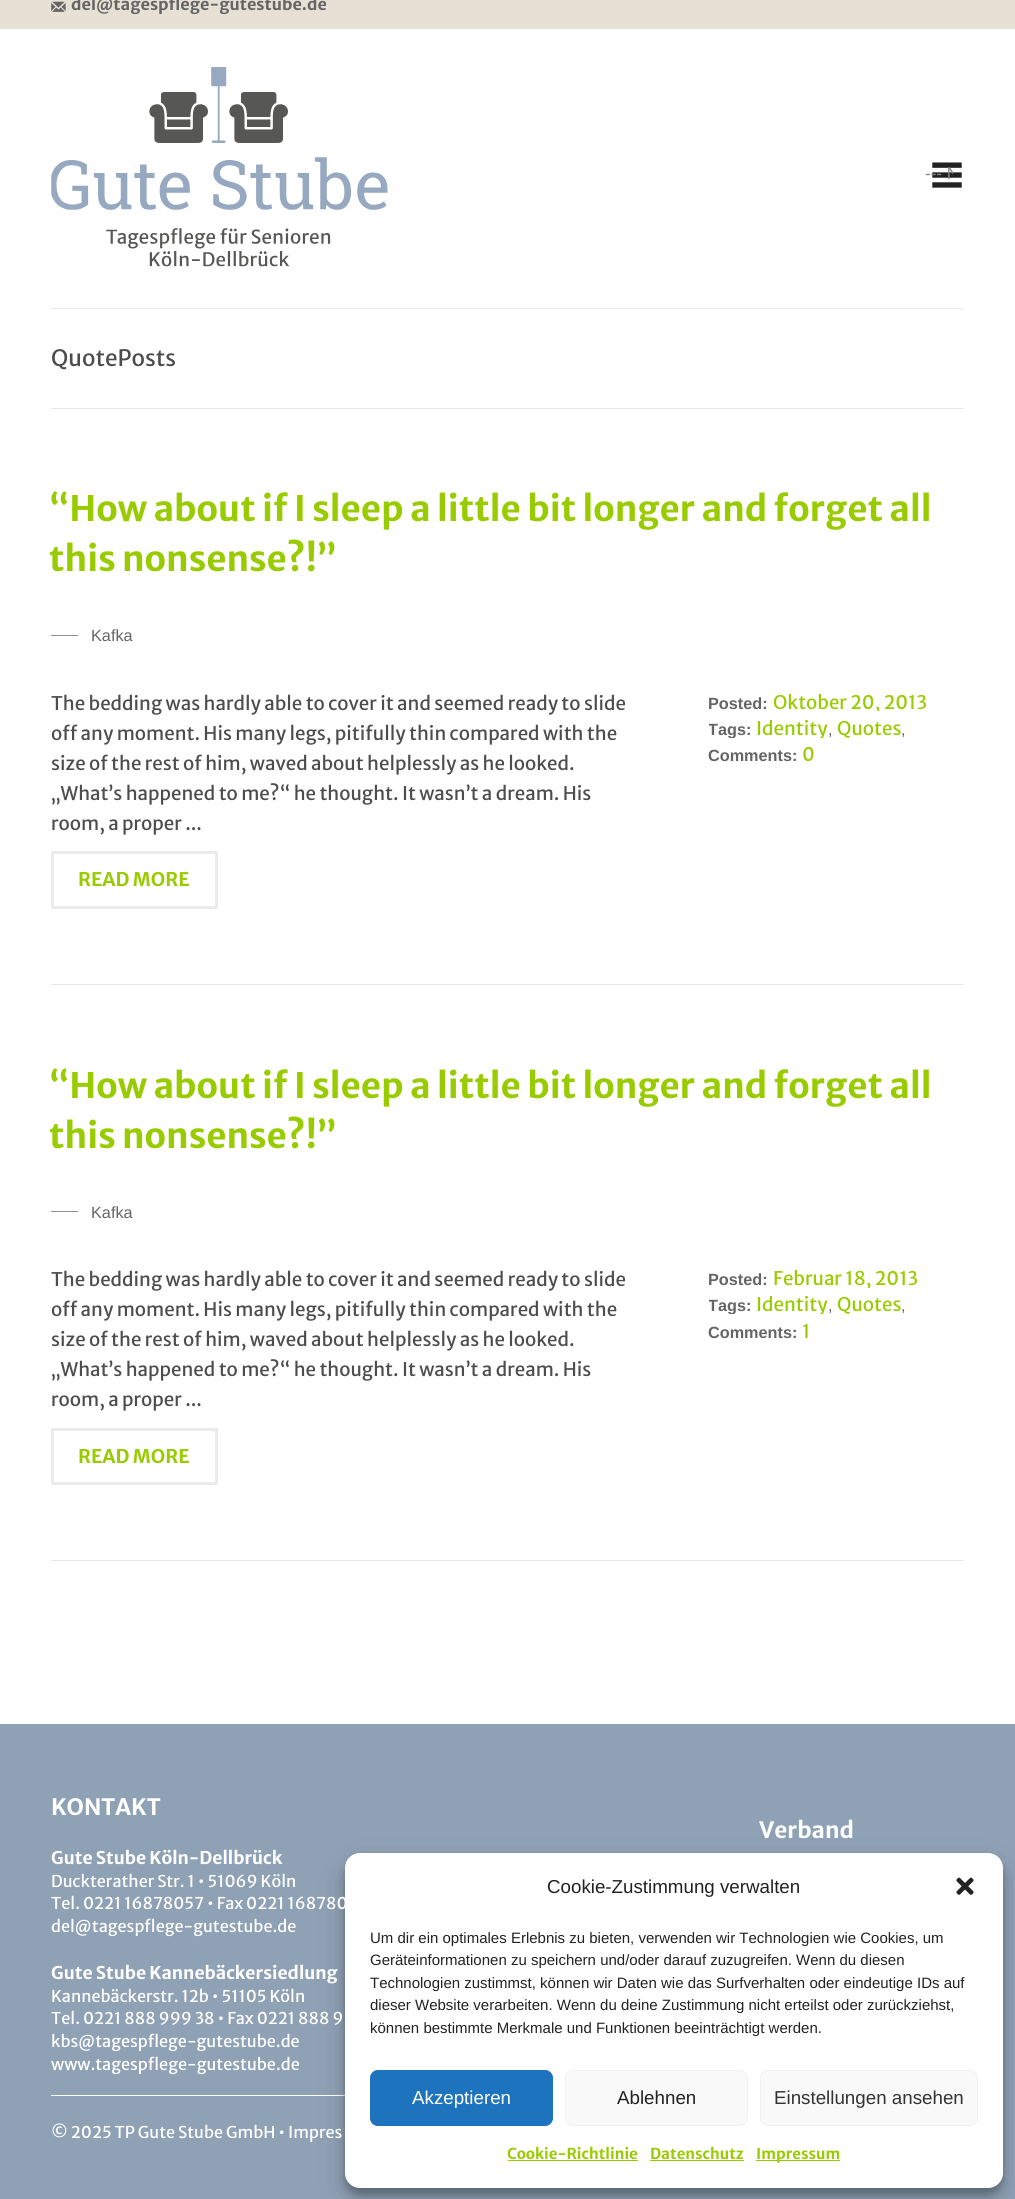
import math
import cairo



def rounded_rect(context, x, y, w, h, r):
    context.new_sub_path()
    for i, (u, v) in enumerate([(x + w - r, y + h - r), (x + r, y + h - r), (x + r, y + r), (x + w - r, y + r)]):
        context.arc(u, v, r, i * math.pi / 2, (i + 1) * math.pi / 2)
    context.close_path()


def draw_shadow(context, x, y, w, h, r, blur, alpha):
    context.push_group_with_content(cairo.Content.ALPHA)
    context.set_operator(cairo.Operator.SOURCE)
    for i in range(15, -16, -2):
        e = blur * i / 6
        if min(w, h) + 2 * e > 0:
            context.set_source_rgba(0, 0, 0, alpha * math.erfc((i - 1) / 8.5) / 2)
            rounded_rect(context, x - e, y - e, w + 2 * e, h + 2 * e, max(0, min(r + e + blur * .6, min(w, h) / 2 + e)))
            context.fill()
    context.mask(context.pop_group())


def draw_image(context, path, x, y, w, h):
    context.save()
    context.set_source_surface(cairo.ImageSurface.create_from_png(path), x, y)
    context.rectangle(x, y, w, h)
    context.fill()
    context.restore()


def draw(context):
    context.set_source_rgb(231 / 255, 224 / 255, 212 / 255)
    context.paint()
    draw_image(context, "images/1.png", 51, 1, 15, 11)
    context.set_source_rgb(1, 1, 1)
    context.rectangle(0, 29, 1015, 1695)
    context.fill()
    context.set_source_rgb(233 / 255, 233 / 255, 233 / 255)
    context.rectangle(51, 308, 913, 1)
    context.fill()
    draw_image(context, "images/2.png", 51, 67, 337, 200)
    draw_image(context, "images/3.png", 932, 162, 30, 26)
    context.rectangle(51, 408, 913, 1)
    context.fill()
    context.rectangle(51, 984, 913, 1)
    context.fill()
    context.set_source_rgb(143 / 255, 143 / 255, 143 / 255)
    context.rectangle(51, 635, 27, 1)
    context.fill()
    context.rectangle(52.5, 852.5, 164, 55)
    context.set_source_rgb(235 / 255, 235 / 255, 235 / 255)
    context.set_line_width(3)
    context.stroke()
    context.set_source_rgb(233 / 255, 233 / 255, 233 / 255)
    context.rectangle(51, 1560, 913, 1)
    context.fill()
    context.set_source_rgb(143 / 255, 143 / 255, 143 / 255)
    context.rectangle(51, 1211, 27, 1)
    context.fill()
    context.rectangle(52.5, 1429.5, 164, 54)
    context.set_source_rgb(235 / 255, 235 / 255, 235 / 255)
    context.stroke()
    context.set_source_rgb(143 / 255, 161 / 255, 181 / 255)
    context.rectangle(0, 1724, 1015, 475)
    context.fill()
    context.set_source_rgb(1, 1, 1)
    context.rectangle(51, 2095, 294, 1)
    context.fill()
    context.set_source_rgb(0, 0, 0)
    draw_shadow(context, 345, 1860, 658, 335, 15, 4, 0.23)
    draw_shadow(context, 345, 1865, 658, 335, 15, 12.5, 0.19)
    context.set_source_rgb(1, 1, 1)
    rounded_rect(context, 345, 1853, 658, 335, 15)
    context.fill()
    draw_image(context, "images/4.png", 956, 1877, 18, 18)
    context.set_source_rgb(30 / 255, 115 / 255, 190 / 255)
    rounded_rect(context, 370.5, 2070.5, 182, 55, 7.5)
    context.fill_preserve()
    context.set_line_width(1)
    context.stroke()
    context.set_source_rgb(249 / 255, 249 / 255, 249 / 255)
    rounded_rect(context, 565.5, 2070.5, 182, 55, 7.5)
    context.fill_preserve()
    context.set_source_rgb(242 / 255, 242 / 255, 242 / 255)
    context.stroke()
    context.set_source_rgb(249 / 255, 249 / 255, 249 / 255)
    rounded_rect(context, 760.5, 2070.5, 217, 55, 7.5)
    context.fill_preserve()
    context.set_source_rgb(242 / 255, 242 / 255, 242 / 255)
    context.stroke()
    context.set_source_rgb(153 / 255, 204 / 255, 0)
    context.rectangle(508, 2160, 130, 1)
    context.fill()
    context.rectangle(650, 2160, 94, 1)
    context.fill()
    context.rectangle(756, 2160, 84, 1)
    context.fill()
    context.select_font_face("Merriweather Sans", cairo.FontSlant.NORMAL, cairo.FontWeight.BOLD)
    context.set_font_size(16.25)
    context.set_source_rgb(101 / 255, 101 / 255, 101 / 255)
    context.move_to(71, 10)
    context.show_text("del@tagespflege-gutestube.de")
    context.save()
    context.rectangle(925, 163, 28, 21)
    context.clip()
    context.select_font_face("Liberation Sans")
    context.set_font_size(17)
    context.set_source_rgb(135 / 255, 135 / 255, 135 / 255)
    context.move_to(925, 179)
    context.show_text("--- N")
    context.restore()
    context.select_font_face("Merriweather Sans")
    context.set_font_size(22.5)
    context.set_source_rgb(77 / 255, 77 / 255, 77 / 255)
    context.move_to(51, 366)
    context.show_text("QuotePosts")
    context.select_font_face("Merriweather Sans", cairo.FontSlant.NORMAL, cairo.FontWeight.BOLD)
    context.set_font_size(35)
    context.set_source_rgb(153 / 255, 204 / 255, 0)
    context.move_to(49, 521)
    context.show_text("“How about if I sleep a little bit longer and forget all")
    context.move_to(49, 571)
    context.show_text("this nonsense?!”")
    context.select_font_face("Liberation Sans")
    context.set_font_size(16.25)
    context.set_source_rgb(101 / 255, 101 / 255, 101 / 255)
    context.move_to(91, 641)
    context.show_text("Kafka")
    context.select_font_face("Merriweather Sans")
    context.set_font_size(18.75)
    context.set_source_rgb(77 / 255, 77 / 255, 77 / 255)
    context.move_to(51, 710)
    context.show_text("The bedding was hardly able to cover it and seemed ready to slide")
    context.move_to(51, 740)
    context.show_text("off any moment. His many legs, pitifully thin compared with the")
    context.move_to(51, 770)
    context.show_text("size of the rest of him, waved about helplessly as he looked.")
    context.move_to(51, 800)
    context.show_text("„What’s happened to me?“ he thought. It wasn’t a dream. His")
    context.move_to(51, 830)
    context.show_text("room, a proper ...")
    context.select_font_face("Merriweather Sans", cairo.FontSlant.NORMAL, cairo.FontWeight.BOLD)
    context.set_source_rgb(153 / 255, 204 / 255, 0)
    context.move_to(78, 886)
    context.show_text("READ MORE")
    context.select_font_face("Liberation Sans", cairo.FontSlant.NORMAL, cairo.FontWeight.BOLD)
    context.set_font_size(16.25)
    context.set_source_rgb(101 / 255, 101 / 255, 101 / 255)
    context.move_to(708, 709)
    context.show_text("Posted:")
    context.save()
    context.rectangle(709, 694, 255, 17)
    context.clip()
    context.select_font_face("Merriweather Sans")
    context.set_font_size(18.75)
    context.set_source_rgb(153 / 255, 204 / 255, 0)
    context.move_to(773, 709)
    context.show_text("Oktober 20, 2013")
    context.restore()
    context.save()
    context.rectangle(709, 720, 255, 18)
    context.clip()
    context.move_to(708, 735)
    context.show_text("Tags:")
    context.select_font_face("Merriweather Sans")
    context.set_font_size(18.75)
    context.set_source_rgb(153 / 255, 204 / 255, 0)
    context.move_to(756, 735)
    context.show_text("Identity")
    context.restore()
    context.select_font_face("Liberation Sans")
    context.move_to(828, 735)
    context.show_text(",")
    context.select_font_face("Merriweather Sans")
    context.set_font_size(18.75)
    context.set_source_rgb(153 / 255, 204 / 255, 0)
    context.move_to(837, 735)
    context.show_text("Quotes")
    context.select_font_face("Liberation Sans")
    context.set_font_size(16.25)
    context.set_source_rgb(101 / 255, 101 / 255, 101 / 255)
    context.move_to(901, 735)
    context.show_text(",")
    context.select_font_face("Liberation Sans", cairo.FontSlant.NORMAL, cairo.FontWeight.BOLD)
    context.move_to(708, 761)
    context.show_text("Comments:")
    context.select_font_face("Merriweather Sans")
    context.set_font_size(18.75)
    context.set_source_rgb(153 / 255, 204 / 255, 0)
    context.move_to(802, 761)
    context.show_text("0")
    context.select_font_face("Merriweather Sans", cairo.FontSlant.NORMAL, cairo.FontWeight.BOLD)
    context.set_font_size(35)
    context.move_to(49, 1098)
    context.show_text("“How about if I sleep a little bit longer and forget all")
    context.move_to(49, 1148)
    context.show_text("this nonsense?!”")
    context.select_font_face("Liberation Sans")
    context.set_font_size(16.25)
    context.set_source_rgb(101 / 255, 101 / 255, 101 / 255)
    context.move_to(91, 1218)
    context.show_text("Kafka")
    context.select_font_face("Merriweather Sans")
    context.set_font_size(18.75)
    context.set_source_rgb(77 / 255, 77 / 255, 77 / 255)
    context.move_to(51, 1286)
    context.show_text("The bedding was hardly able to cover it and seemed ready to slide")
    context.move_to(51, 1316)
    context.show_text("off any moment. His many legs, pitifully thin compared with the")
    context.move_to(51, 1346)
    context.show_text("size of the rest of him, waved about helplessly as he looked.")
    context.move_to(51, 1376)
    context.show_text("„What’s happened to me?“ he thought. It wasn’t a dream. His")
    context.move_to(51, 1406)
    context.show_text("room, a proper ...")
    context.select_font_face("Merriweather Sans", cairo.FontSlant.NORMAL, cairo.FontWeight.BOLD)
    context.set_source_rgb(153 / 255, 204 / 255, 0)
    context.move_to(78, 1463)
    context.show_text("READ MORE")
    context.select_font_face("Liberation Sans", cairo.FontSlant.NORMAL, cairo.FontWeight.BOLD)
    context.set_font_size(16.25)
    context.set_source_rgb(101 / 255, 101 / 255, 101 / 255)
    context.move_to(708, 1285)
    context.show_text("Posted:")
    context.save()
    context.rectangle(709, 1270, 255, 18)
    context.clip()
    context.select_font_face("Merriweather Sans")
    context.set_font_size(18.75)
    context.set_source_rgb(153 / 255, 204 / 255, 0)
    context.move_to(773, 1285)
    context.show_text("Februar 18, 2013")
    context.restore()
    context.save()
    context.rectangle(709, 1296, 255, 18)
    context.clip()
    context.move_to(708, 1311)
    context.show_text("Tags:")
    context.select_font_face("Merriweather Sans")
    context.set_font_size(18.75)
    context.set_source_rgb(153 / 255, 204 / 255, 0)
    context.move_to(756, 1311)
    context.show_text("Identity")
    context.restore()
    context.select_font_face("Liberation Sans")
    context.move_to(828, 1311)
    context.show_text(",")
    context.select_font_face("Merriweather Sans")
    context.set_font_size(18.75)
    context.set_source_rgb(153 / 255, 204 / 255, 0)
    context.move_to(837, 1311)
    context.show_text("Quotes")
    context.select_font_face("Liberation Sans")
    context.set_font_size(16.25)
    context.set_source_rgb(101 / 255, 101 / 255, 101 / 255)
    context.move_to(901, 1311)
    context.show_text(",")
    context.select_font_face("Liberation Sans", cairo.FontSlant.NORMAL, cairo.FontWeight.BOLD)
    context.move_to(708, 1338)
    context.show_text("Comments:")
    context.select_font_face("Merriweather Sans")
    context.set_font_size(18.75)
    context.set_source_rgb(153 / 255, 204 / 255, 0)
    context.move_to(802, 1338)
    context.show_text("1")
    context.select_font_face("Merriweather Sans", cairo.FontSlant.NORMAL, cairo.FontWeight.BOLD)
    context.set_font_size(22.5)
    context.set_source_rgb(1, 1, 1)
    context.move_to(51, 1815)
    context.show_text("KONTAKT")
    context.set_font_size(17.5)
    context.move_to(51, 1864)
    context.show_text("Gute Stube Köln-Dellbrück")
    context.select_font_face("Merriweather Sans")
    context.set_font_size(16.25)
    context.move_to(51, 1887)
    context.show_text("Duckterather Str. 1 • 51069 Köln")
    context.move_to(51, 1909)
    context.show_text("Tel. 0221 16878057 • Fax 0221 168780")
    context.move_to(51, 1932)
    context.show_text("del@tagespflege-gutestube.de")
    context.select_font_face("Merriweather Sans", cairo.FontSlant.NORMAL, cairo.FontWeight.BOLD)
    context.set_font_size(17.5)
    context.move_to(51, 1979)
    context.show_text("Gute Stube Kannebäckersiedlung")
    context.select_font_face("Merriweather Sans")
    context.set_font_size(16.25)
    context.move_to(51, 2002)
    context.show_text("Kannebäckerstr. 12b • 51105 Köln")
    context.move_to(51, 2024)
    context.show_text("Tel. 0221 888 999 38 • Fax 0221 888 9")
    context.move_to(51, 2047)
    context.show_text("kbs@tagespflege-gutestube.de")
    context.move_to(51, 2070)
    context.show_text("www.tagespflege-gutestube.de")
    context.select_font_face("Merriweather Sans", cairo.FontSlant.NORMAL, cairo.FontWeight.BOLD)
    context.set_font_size(22.5)
    context.move_to(759, 1838)
    context.show_text("Verband")
    context.select_font_face("Merriweather Sans")
    context.set_font_size(16.25)
    context.move_to(51, 2138)
    context.show_text("© 2025 TP Gute Stube GmbH • Impres")
    context.select_font_face("Liberation Sans")
    context.set_font_size(18.75)
    context.set_source_rgb(34 / 255, 34 / 255, 34 / 255)
    context.move_to(547, 1893)
    context.show_text("Cookie-Zustimmung verwalten")
    context.set_font_size(15)
    context.move_to(370, 1943)
    context.show_text("Um dir ein optimales Erlebnis zu bieten, verwenden wir Technologien wie Cookies, um")
    context.move_to(370, 1965)
    context.show_text("Geräteinformationen zu speichern und/oder darauf zuzugreifen. Wenn du diesen")
    context.move_to(370, 1988)
    context.show_text("Technologien zustimmst, können wir Daten wie das Surfverhalten oder eindeutige IDs auf")
    context.move_to(370, 2010)
    context.show_text("dieser Website verarbeiten. Wenn du deine Zustimmung nicht erteilst oder zurückziehst,")
    context.move_to(370, 2033)
    context.show_text("können bestimmte Merkmale und Funktionen beeinträchtigt werden.")
    context.set_font_size(18.75)
    context.set_source_rgb(1, 1, 1)
    context.move_to(412, 2104)
    context.show_text("Akzeptieren")
    context.set_source_rgb(34 / 255, 34 / 255, 34 / 255)
    context.move_to(617, 2104)
    context.show_text("Ablehnen")
    context.set_source_rgb(51 / 255, 51 / 255, 51 / 255)
    context.move_to(774, 2104)
    context.show_text("Einstellungen ansehen")
    context.select_font_face("Merriweather Sans", cairo.FontSlant.NORMAL, cairo.FontWeight.BOLD)
    context.set_font_size(15)
    context.set_source_rgb(153 / 255, 204 / 255, 0)
    context.move_to(507, 2159)
    context.show_text("Cookie-Richtlinie")
    context.move_to(650, 2159)
    context.show_text("Datenschutz")
    context.move_to(756, 2159)
    context.show_text("Impressum")


surface = cairo.ImageSurface(cairo.Format.RGB24, 1015, 2199)
context = cairo.Context(surface)
options = cairo.FontOptions()
options.set_hint_metrics(cairo.HintMetrics.OFF)
options.set_hint_style(cairo.HintStyle.NONE)
context.set_font_options(options)
context.set_miter_limit(4)
draw(context)
surface.write_to_png("out.png")
